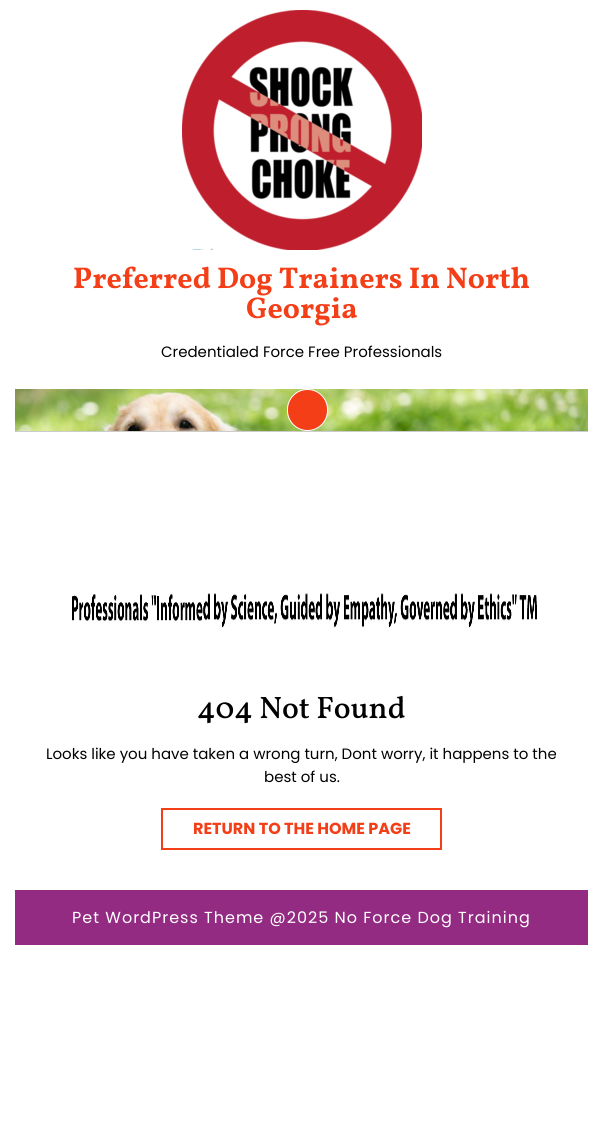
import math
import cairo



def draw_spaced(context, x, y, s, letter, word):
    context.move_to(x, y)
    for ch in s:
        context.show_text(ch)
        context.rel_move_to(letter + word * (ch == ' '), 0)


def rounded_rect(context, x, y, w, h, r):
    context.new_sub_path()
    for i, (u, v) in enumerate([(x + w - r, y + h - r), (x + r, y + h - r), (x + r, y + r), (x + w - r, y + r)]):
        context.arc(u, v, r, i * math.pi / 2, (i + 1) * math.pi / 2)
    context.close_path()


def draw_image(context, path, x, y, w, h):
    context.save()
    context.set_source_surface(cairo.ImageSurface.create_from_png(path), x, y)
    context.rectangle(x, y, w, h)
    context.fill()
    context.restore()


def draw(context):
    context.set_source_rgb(1, 1, 1)
    context.paint()
    draw_image(context, "images/1.png", 182, 10, 240, 240)
    draw_image(context, "images/2.png", 15, 389, 573, 42)
    context.set_source_rgb(204 / 255, 204 / 255, 204 / 255)
    context.rectangle(15, 431, 573, 1)
    context.fill()
    context.set_source_rgb(243 / 255, 62 / 255, 23 / 255)
    rounded_rect(context, 287.5, 389.5, 40, 41, 20)
    context.fill_preserve()
    context.set_source_rgb(1, 1, 1)
    context.set_line_width(1)
    context.stroke()
    draw_image(context, "images/3.png", 72, 593, 465, 35)
    context.rectangle(162, 809, 279, 40)
    context.set_source_rgb(243 / 255, 62 / 255, 23 / 255)
    context.set_line_width(2)
    context.stroke()
    context.set_source_rgb(147 / 255, 43 / 255, 130 / 255)
    context.rectangle(15, 890, 573, 55)
    context.fill()
    context.select_font_face("Vollkorn", cairo.FontSlant.NORMAL, cairo.FontWeight.BOLD)
    context.set_font_size(30)
    context.set_source_rgb(243 / 255, 62 / 255, 23 / 255)
    context.move_to(73, 288)
    context.show_text("Preferred Dog Trainers In North")
    context.move_to(246, 318)
    context.show_text("Georgia")
    context.select_font_face("Poppins")
    context.set_font_size(15)
    context.set_source_rgb(0, 0, 0)
    context.move_to(161, 357)
    context.show_text("Credentialed Force Free Professionals")
    context.select_font_face("Vollkorn Medium")
    context.set_font_size(31)
    context.move_to(197, 718)
    context.show_text("404 Not Found")
    context.select_font_face("Poppins")
    context.set_font_size(15)
    context.move_to(46, 759)
    context.show_text("Looks like you have taken a wrong turn, Dont worry, it happens to the")
    context.move_to(264, 782)
    context.show_text("best of us.")
    context.select_font_face("Poppins", cairo.FontSlant.NORMAL, cairo.FontWeight.BOLD)
    context.set_font_size(16)
    context.set_source_rgb(243 / 255, 62 / 255, 23 / 255)
    context.move_to(193, 834)
    context.show_text("RETURN TO THE HOME PAGE")
    context.select_font_face("Poppins")
    context.set_source_rgb(1, 1, 1)
    draw_spaced(context, 72, 923, "Pet WordPress Theme @2025 No Force Dog Training", 1, 0)


surface = cairo.ImageSurface(cairo.Format.RGB24, 603, 1133)
context = cairo.Context(surface)
options = cairo.FontOptions()
options.set_hint_metrics(cairo.HintMetrics.OFF)
options.set_hint_style(cairo.HintStyle.NONE)
context.set_font_options(options)
context.set_miter_limit(4)
draw(context)
surface.write_to_png("out.png")
